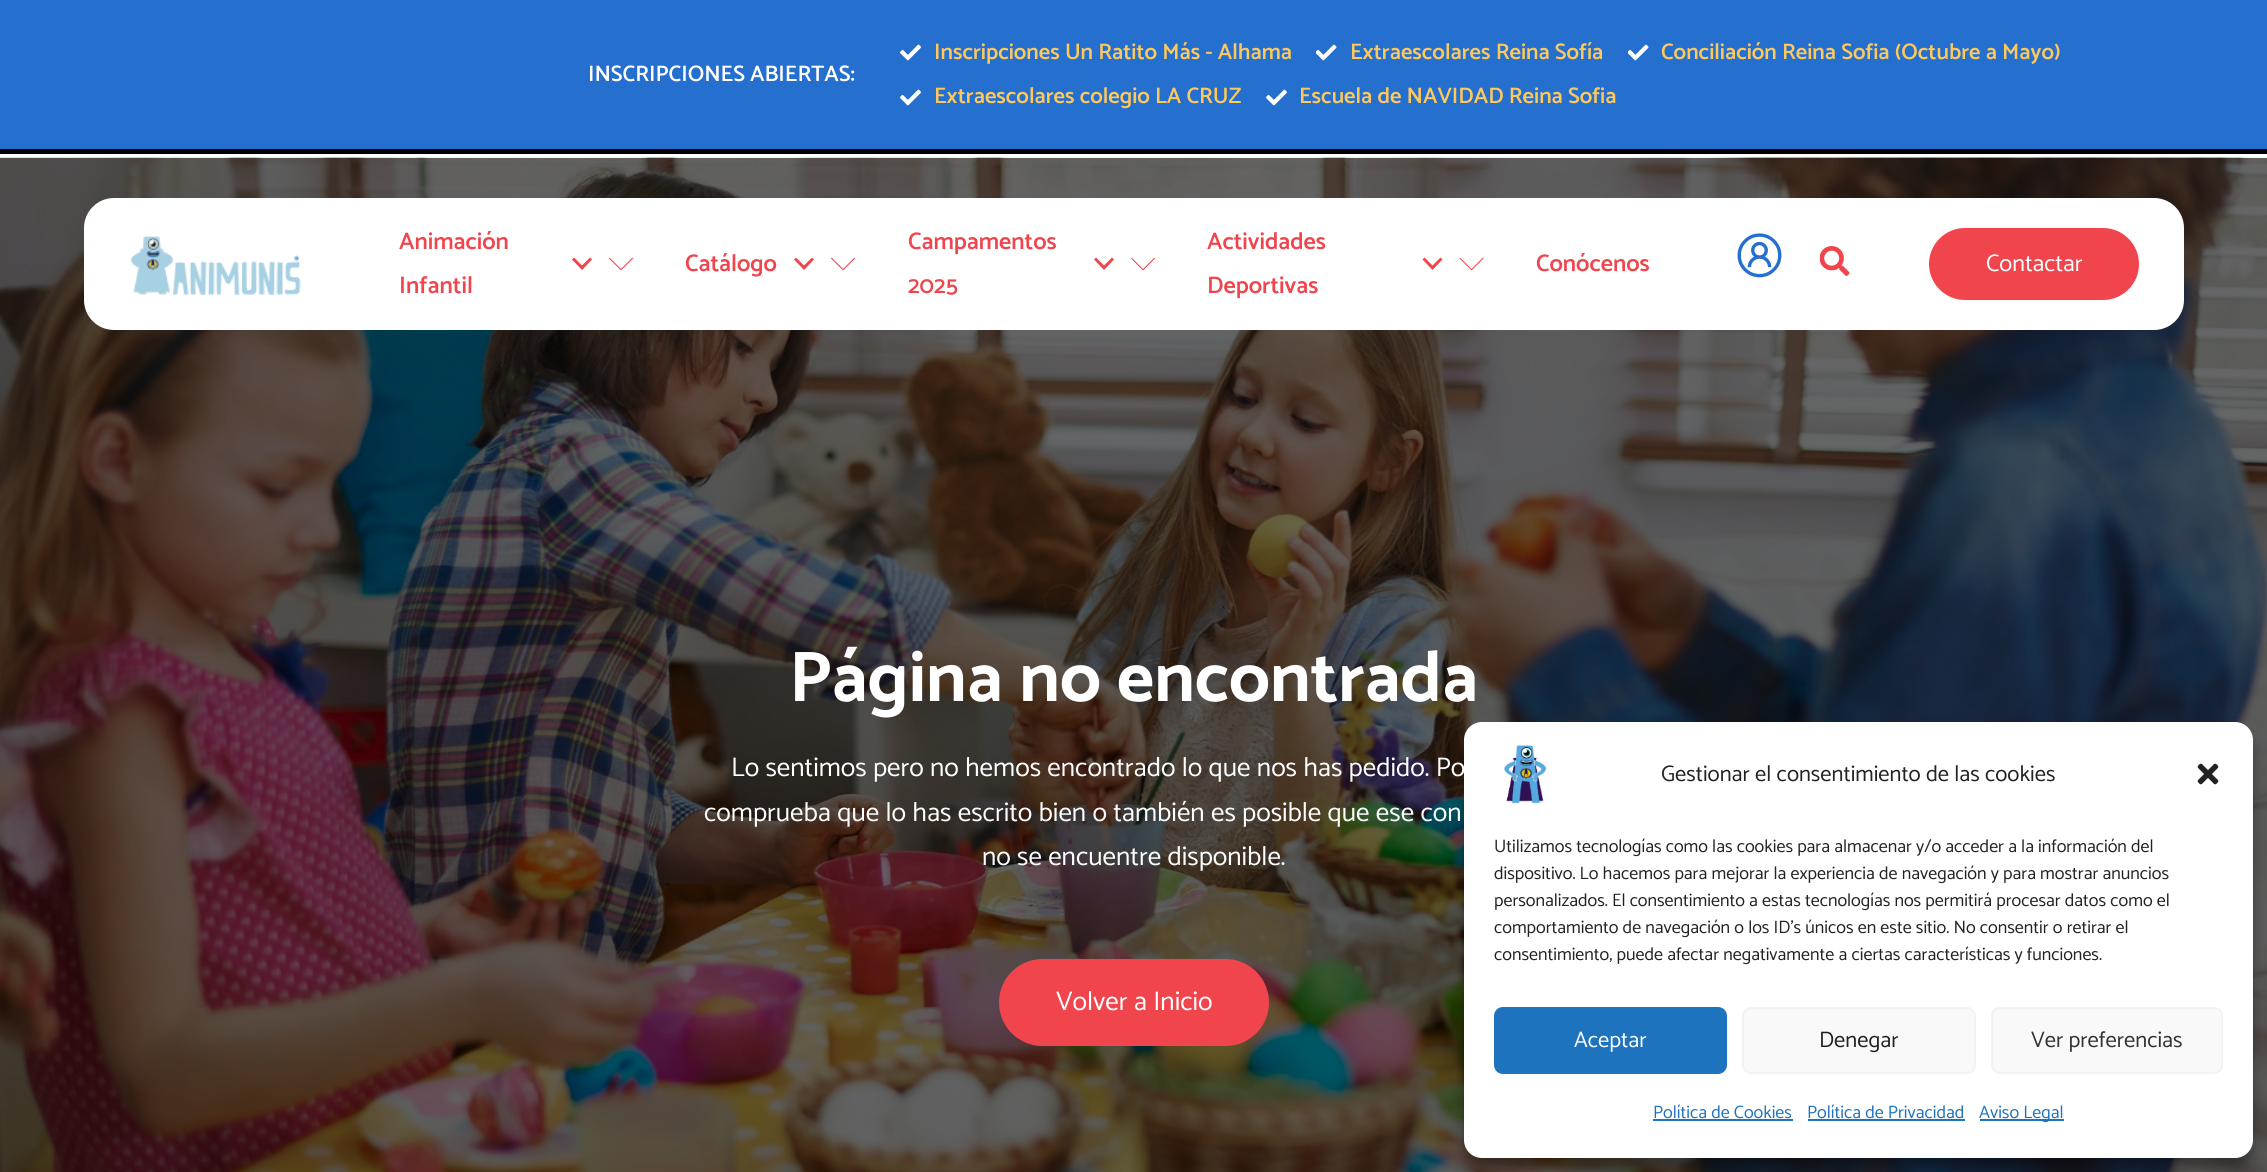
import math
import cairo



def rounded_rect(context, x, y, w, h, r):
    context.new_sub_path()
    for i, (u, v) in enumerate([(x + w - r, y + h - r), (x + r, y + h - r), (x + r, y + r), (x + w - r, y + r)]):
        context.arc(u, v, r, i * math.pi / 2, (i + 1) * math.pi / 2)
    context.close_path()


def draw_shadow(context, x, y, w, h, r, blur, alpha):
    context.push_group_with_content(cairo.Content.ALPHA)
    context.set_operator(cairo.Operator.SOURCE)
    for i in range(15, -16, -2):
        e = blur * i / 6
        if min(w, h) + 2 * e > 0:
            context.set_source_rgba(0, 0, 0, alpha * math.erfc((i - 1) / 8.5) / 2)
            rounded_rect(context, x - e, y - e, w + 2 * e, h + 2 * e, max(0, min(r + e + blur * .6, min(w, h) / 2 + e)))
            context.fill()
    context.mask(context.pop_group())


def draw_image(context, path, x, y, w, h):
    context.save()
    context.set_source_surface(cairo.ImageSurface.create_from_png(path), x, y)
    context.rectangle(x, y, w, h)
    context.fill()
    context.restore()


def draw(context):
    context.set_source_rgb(1, 1, 1)
    context.paint()
    context.set_source_rgb(37 / 255, 111 / 255, 207 / 255)
    context.rectangle(0, 0, 2267, 149)
    context.fill()
    context.set_source_rgb(0, 0, 0)
    context.rectangle(0, 149, 2267, 5)
    context.fill()
    draw_image(context, "images/1.png", 900, 44, 21, 17)
    draw_image(context, "images/2.png", 1316, 44, 21, 17)
    draw_image(context, "images/2.png", 1628, 44, 21, 17)
    draw_image(context, "images/1.png", 900, 89, 21, 17)
    draw_image(context, "images/1.png", 1266, 89, 21, 17)
    draw_image(context, "images/8.png", 0, 157, 2267, 1015)
    context.set_source_rgb(1, 1, 1)
    rounded_rect(context, 84, 198, 2100, 132, 30)
    context.fill()
    draw_image(context, "images/3.png", 130, 236, 171, 60)
    context.set_source_rgb(241 / 255, 69 / 255, 78 / 255)
    context.new_path()
    context.move_to(572, 259.5)
    context.line_to(582, 270)
    context.line_to(592, 259.5)
    context.line_to(590, 257.5)
    context.line_to(582, 265.5)
    context.line_to(574, 257.5)
    context.close_path()
    context.fill()
    draw_image(context, "images/4.png", 609, 257, 24, 14)
    context.new_path()
    context.move_to(794, 259.5)
    context.line_to(804, 270)
    context.line_to(814, 259.5)
    context.line_to(812, 257.5)
    context.line_to(804, 265.5)
    context.line_to(796, 257.5)
    context.close_path()
    context.fill()
    draw_image(context, "images/4.png", 831, 257, 24, 14)
    context.new_path()
    context.move_to(1094, 259.5)
    context.line_to(1104, 270)
    context.line_to(1114, 259.5)
    context.line_to(1112, 257.5)
    context.line_to(1104, 265.5)
    context.line_to(1096, 257.5)
    context.close_path()
    context.fill()
    draw_image(context, "images/4.png", 1131, 257, 24, 14)
    context.new_path()
    context.move_to(1422.5, 259.5)
    context.line_to(1432.5, 270)
    context.line_to(1442.5, 259.5)
    context.line_to(1440.5, 257.5)
    context.line_to(1432.5, 265.5)
    context.line_to(1424.5, 257.5)
    context.close_path()
    context.fill()
    draw_image(context, "images/5.png", 1459, 257, 25, 14)
    draw_image(context, "images/6.png", 1737, 233, 45, 45)
    draw_image(context, "images/7.png", 1820, 246, 30, 30)
    rounded_rect(context, 1929, 228, 210, 72, 36)
    context.fill()
    rounded_rect(context, 999, 959, 270, 87, 43.5)
    context.fill()
    context.set_source_rgb(0, 0, 0)
    draw_shadow(context, 1464, 731, 789, 436, 18, 4.5, 0.23)
    draw_shadow(context, 1464, 737, 789, 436, 18, 15, 0.19)
    context.set_source_rgb(1, 1, 1)
    rounded_rect(context, 1464, 722, 789, 436, 18)
    context.fill()
    draw_image(context, "images/9.png", 1504, 745, 43, 59)
    draw_image(context, "images/10.png", 2197, 763, 22, 22)
    context.set_source_rgb(30 / 255, 115 / 255, 190 / 255)
    rounded_rect(context, 1495, 1008, 231, 65, 8)
    context.fill_preserve()
    context.stroke()
    context.set_source_rgb(249 / 255, 249 / 255, 249 / 255)
    rounded_rect(context, 1743, 1008, 232, 65, 8)
    context.fill_preserve()
    context.set_source_rgb(242 / 255, 242 / 255, 242 / 255)
    context.stroke()
    context.set_source_rgb(249 / 255, 249 / 255, 249 / 255)
    rounded_rect(context, 1992, 1008, 230, 65, 8)
    context.fill_preserve()
    context.set_source_rgb(242 / 255, 242 / 255, 242 / 255)
    context.stroke()
    context.set_source_rgb(30 / 255, 115 / 255, 190 / 255)
    context.rectangle(1653, 1119, 140, 2)
    context.fill()
    context.rectangle(1808, 1119, 157, 2)
    context.fill()
    context.rectangle(1980, 1119, 84, 2)
    context.fill()
    context.select_font_face("Catamaran SemiBold")
    context.set_font_size(22.5)
    context.set_source_rgb(1, 1, 1)
    context.move_to(588, 81)
    context.show_text("INSCRIPCIONES ABIERTAS:")
    context.set_source_rgb(1, 201 / 255, 90 / 255)
    context.move_to(934, 59)
    context.show_text("Inscripciones Un Ratito Más - Alhama")
    context.move_to(1350, 59)
    context.show_text("Extraescolares Reina Sofía")
    context.move_to(1661, 59)
    context.show_text("Conciliación Reina Sofia (Octubre a Mayo)")
    context.move_to(934, 103)
    context.show_text("Extraescolares colegio LA CRUZ")
    context.move_to(1299, 103)
    context.show_text("Escuela de NAVIDAD Reina Sofia")
    context.set_font_size(24)
    context.set_source_rgb(241 / 255, 69 / 255, 78 / 255)
    context.move_to(399, 249)
    context.show_text("Animación")
    context.move_to(399, 293)
    context.show_text("Infantil")
    context.move_to(685, 271)
    context.show_text("Catálogo")
    context.move_to(908, 249)
    context.show_text("Campamentos")
    context.move_to(908, 293)
    context.show_text("2025")
    context.move_to(1207, 249)
    context.show_text("Actividades")
    context.move_to(1207, 293)
    context.show_text("Deportivas")
    context.move_to(1536, 271)
    context.show_text("Conócenos")
    context.select_font_face("Catamaran")
    context.set_source_rgb(1, 1, 1)
    context.move_to(1986, 271)
    context.show_text("Contactar")
    context.select_font_face("Catamaran", cairo.FontSlant.NORMAL, cairo.FontWeight.BOLD)
    context.set_font_size(72)
    context.move_to(789, 701)
    context.show_text("Página no encontrada")
    context.select_font_face("Catamaran")
    context.set_font_size(27)
    context.move_to(731, 776)
    context.show_text("Lo sentimos pero no hemos encontrado lo que nos has pedido. Po")
    context.move_to(704, 821)
    context.show_text("comprueba que lo has escrito bien o también es posible que ese con")
    context.move_to(982, 865)
    context.show_text("no se encuentre disponible.")
    context.move_to(1056, 1010)
    context.show_text("Volver a Inicio")
    context.set_font_size(22.5)
    context.set_source_rgb(34 / 255, 34 / 255, 34 / 255)
    context.move_to(1661, 781)
    context.show_text("Gestionar el consentimiento de las cookies")
    context.set_font_size(18)
    context.move_to(1494, 852)
    context.show_text("Utilizamos tecnologías como las cookies para almacenar y/o acceder a la información del")
    context.move_to(1494, 879)
    context.show_text("dispositivo. Lo hacemos para mejorar la experiencia de navegación y para mostrar anuncios")
    context.move_to(1494, 906)
    context.show_text("personalizados. El consentimiento a estas tecnologías nos permitirá procesar datos como el")
    context.move_to(1494, 933)
    context.show_text("comportamiento de navegación o los ID's únicos en este sitio. No consentir o retirar el")
    context.move_to(1494, 960)
    context.show_text("consentimiento, puede afectar negativamente a ciertas características y funciones.")
    context.set_font_size(22.5)
    context.set_source_rgb(1, 1, 1)
    context.move_to(1574, 1047)
    context.show_text("Aceptar")
    context.set_source_rgb(34 / 255, 34 / 255, 34 / 255)
    context.move_to(1819, 1047)
    context.show_text("Denegar")
    context.set_source_rgb(51 / 255, 51 / 255, 51 / 255)
    context.move_to(2031, 1047)
    context.show_text("Ver preferencias")
    context.set_font_size(18)
    context.set_source_rgb(30 / 255, 115 / 255, 190 / 255)
    context.move_to(1653, 1118)
    context.show_text("Política de Cookies")
    context.move_to(1807, 1118)
    context.show_text("Política de Privacidad")
    context.move_to(1979, 1118)
    context.show_text("Aviso Legal")


surface = cairo.ImageSurface(cairo.Format.RGB24, 2267, 1172)
context = cairo.Context(surface)
options = cairo.FontOptions()
options.set_hint_metrics(cairo.HintMetrics.OFF)
options.set_hint_style(cairo.HintStyle.NONE)
context.set_font_options(options)
context.set_miter_limit(4)
draw(context)
surface.write_to_png("out.png")
